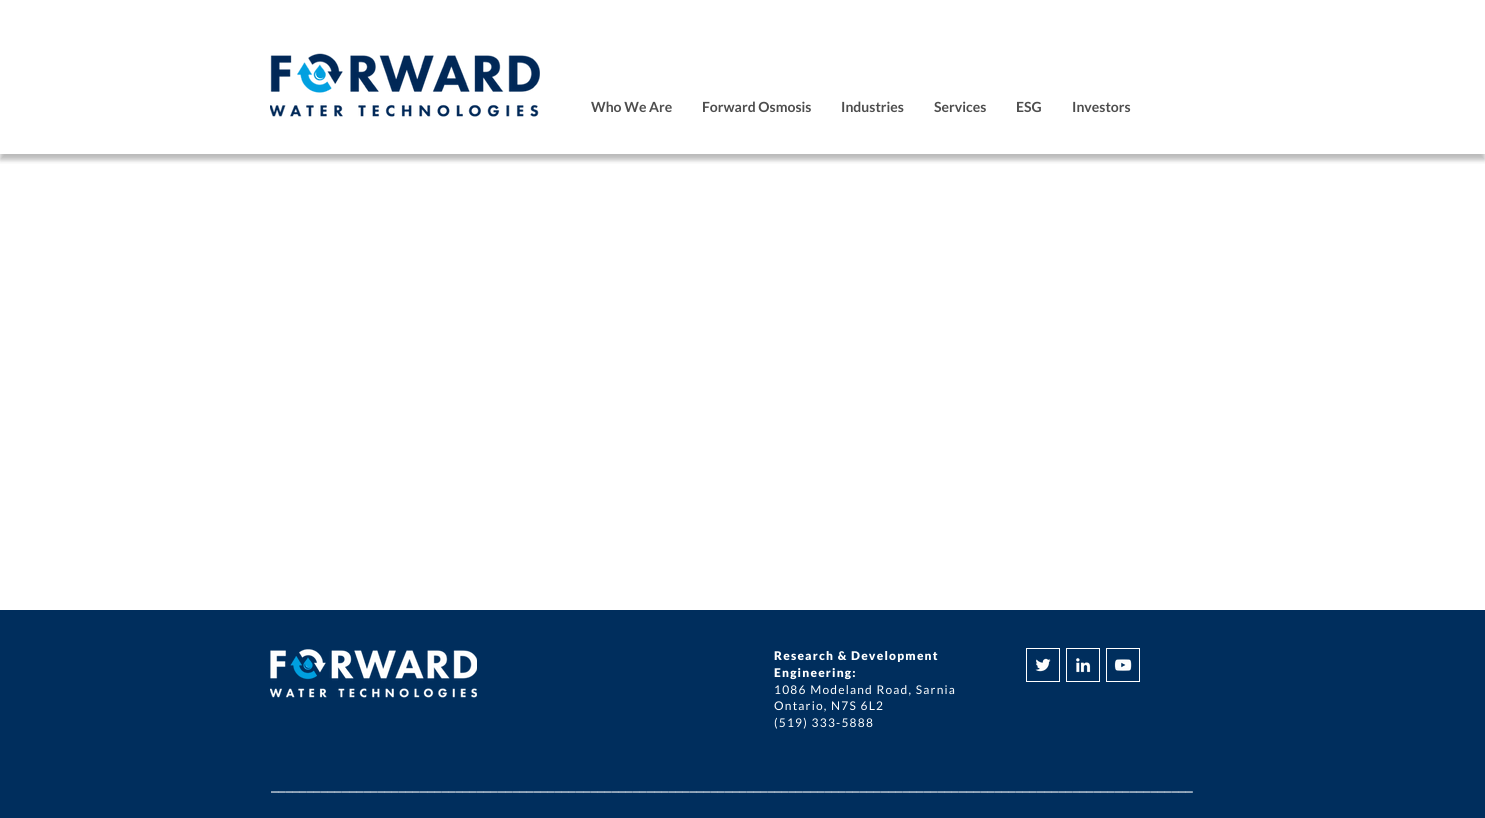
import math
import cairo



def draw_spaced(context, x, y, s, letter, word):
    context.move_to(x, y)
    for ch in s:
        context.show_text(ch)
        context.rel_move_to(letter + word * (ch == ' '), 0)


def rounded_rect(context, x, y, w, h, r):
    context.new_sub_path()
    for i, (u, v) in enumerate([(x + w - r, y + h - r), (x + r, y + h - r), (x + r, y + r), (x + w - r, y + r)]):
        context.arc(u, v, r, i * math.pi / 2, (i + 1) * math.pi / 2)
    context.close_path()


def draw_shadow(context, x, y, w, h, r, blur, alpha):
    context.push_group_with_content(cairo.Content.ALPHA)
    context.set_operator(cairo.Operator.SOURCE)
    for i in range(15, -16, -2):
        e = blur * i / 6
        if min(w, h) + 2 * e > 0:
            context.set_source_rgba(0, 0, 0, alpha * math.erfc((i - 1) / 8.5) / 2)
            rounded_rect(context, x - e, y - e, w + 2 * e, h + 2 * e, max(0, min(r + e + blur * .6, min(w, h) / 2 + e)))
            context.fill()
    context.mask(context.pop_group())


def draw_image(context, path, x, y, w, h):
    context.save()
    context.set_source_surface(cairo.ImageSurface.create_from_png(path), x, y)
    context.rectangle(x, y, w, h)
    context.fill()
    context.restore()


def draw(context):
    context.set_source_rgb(1, 1, 1)
    context.paint()
    context.save()
    context.rectangle(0, 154, 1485, 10)
    context.clip()
    context.set_source_rgb(0, 0, 0)
    draw_shadow(context, 0, 6, 1485, 154, 0, 2.5, 0.27)
    context.restore()
    draw_image(context, "images/1.png", 270, 53, 270, 64)
    context.set_source_rgb(0, 46 / 255, 93 / 255)
    context.rectangle(0, 610, 1485, 208)
    context.fill()
    draw_image(context, "images/2.png", 270, 649, 207, 49)
    context.rectangle(1026.5, 648.5, 33, 33)
    context.set_source_rgb(1, 1, 1)
    context.set_line_width(1)
    context.stroke()
    context.rectangle(1066.5, 648.5, 33, 33)
    context.stroke()
    context.rectangle(1106.5, 648.5, 33, 33)
    context.stroke()
    draw_image(context, "images/3.png", 1035, 658, 16, 14)
    draw_image(context, "images/4.png", 1076, 658, 15, 15)
    draw_image(context, "images/5.png", 1114, 659, 18, 12)
    context.select_font_face("Lato", cairo.FontSlant.NORMAL, cairo.FontWeight.BOLD)
    context.set_font_size(14)
    context.set_source_rgb(77 / 255, 77 / 255, 77 / 255)
    context.move_to(591, 112)
    context.show_text("Who We Are")
    context.move_to(702, 112)
    context.show_text("Forward Osmosis")
    context.move_to(841, 112)
    context.show_text("Industries")
    context.move_to(934, 112)
    context.show_text("Services")
    context.move_to(1016, 112)
    context.show_text("ESG")
    context.move_to(1072, 112)
    context.show_text("Investors")
    context.select_font_face("Lato Black")
    context.set_font_size(12)
    context.set_source_rgb(1, 1, 1)
    draw_spaced(context, 774, 660, "Research & Development", 1.2, 0)
    draw_spaced(context, 774, 677, "Engineering:", 1.2, 0)
    context.select_font_face("Lato")
    draw_spaced(context, 774, 694, "1086 Modeland Road, Sarnia", 1.2, 0)
    draw_spaced(context, 774, 710, "Ontario, N7S 6L2", 1.2, 0)
    draw_spaced(context, 774, 727, "(519) 333-5888", 1.2, 0)
    context.set_font_size(18)
    context.move_to(271, 790)
    context.show_text("__________________________________________________________________________________________________________________________________")


surface = cairo.ImageSurface(cairo.Format.RGB24, 1485, 818)
context = cairo.Context(surface)
options = cairo.FontOptions()
options.set_hint_metrics(cairo.HintMetrics.OFF)
options.set_hint_style(cairo.HintStyle.NONE)
context.set_font_options(options)
context.set_miter_limit(4)
draw(context)
surface.write_to_png("out.png")
